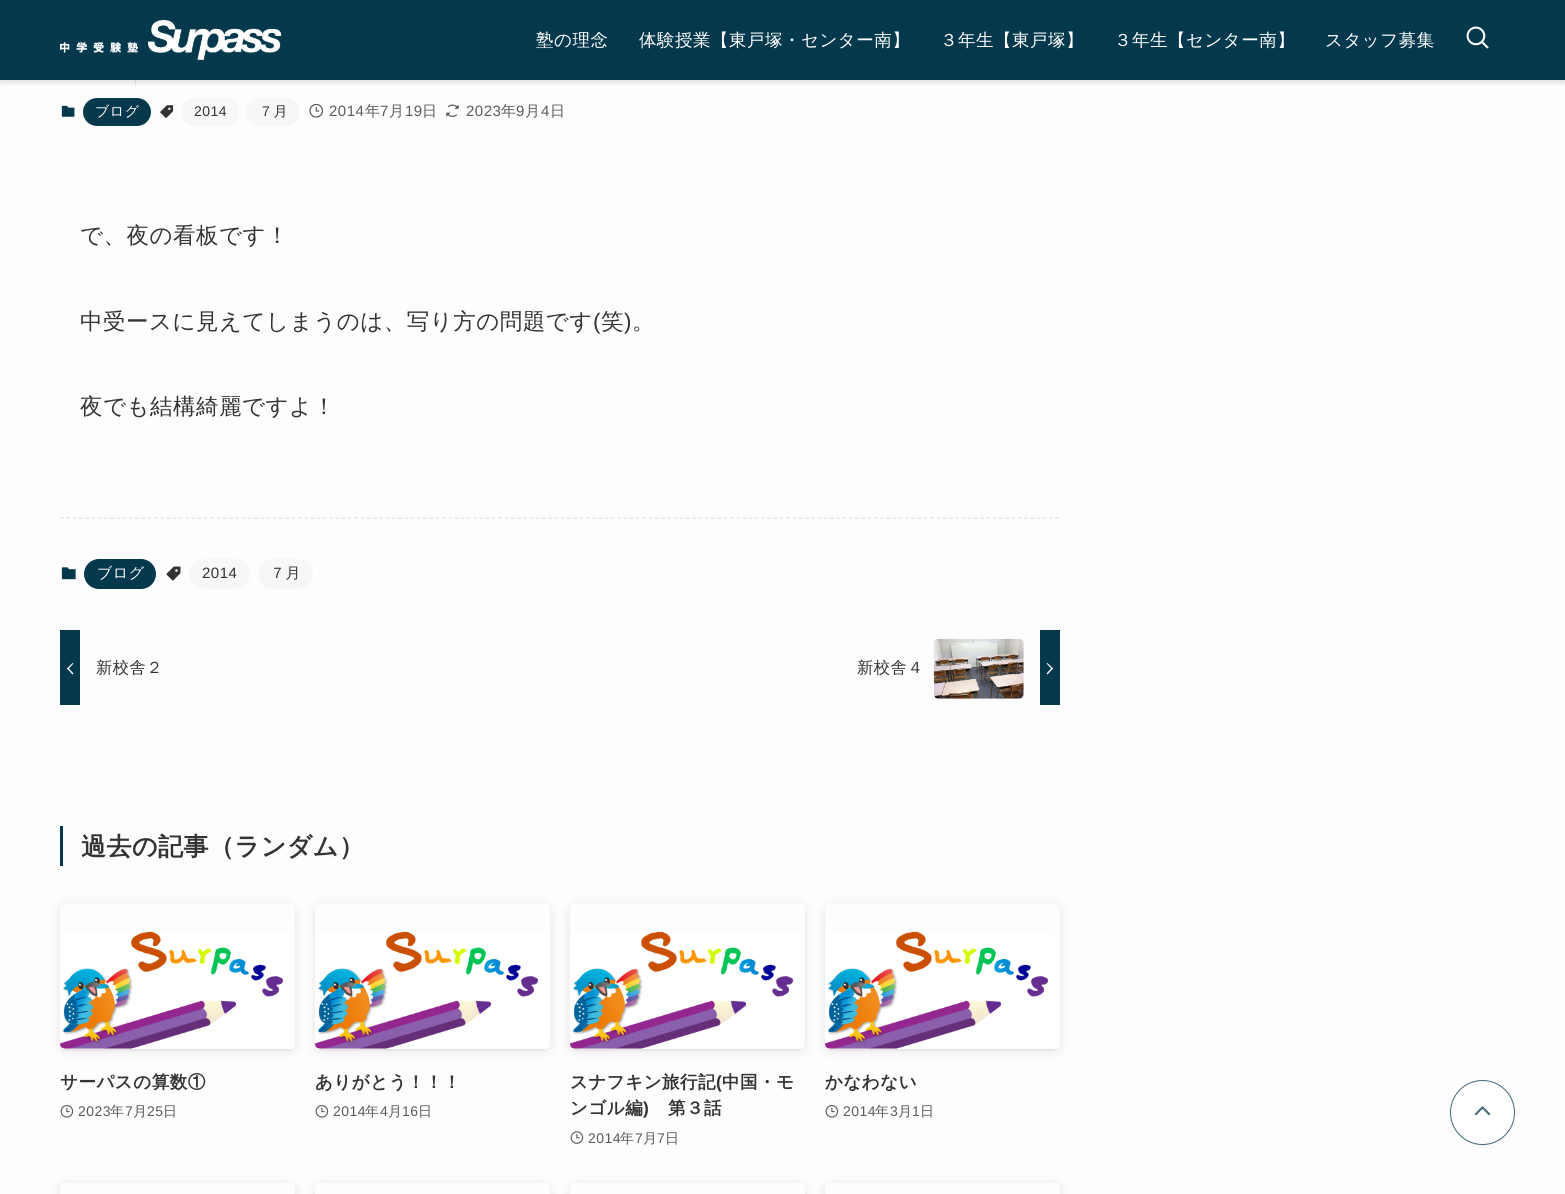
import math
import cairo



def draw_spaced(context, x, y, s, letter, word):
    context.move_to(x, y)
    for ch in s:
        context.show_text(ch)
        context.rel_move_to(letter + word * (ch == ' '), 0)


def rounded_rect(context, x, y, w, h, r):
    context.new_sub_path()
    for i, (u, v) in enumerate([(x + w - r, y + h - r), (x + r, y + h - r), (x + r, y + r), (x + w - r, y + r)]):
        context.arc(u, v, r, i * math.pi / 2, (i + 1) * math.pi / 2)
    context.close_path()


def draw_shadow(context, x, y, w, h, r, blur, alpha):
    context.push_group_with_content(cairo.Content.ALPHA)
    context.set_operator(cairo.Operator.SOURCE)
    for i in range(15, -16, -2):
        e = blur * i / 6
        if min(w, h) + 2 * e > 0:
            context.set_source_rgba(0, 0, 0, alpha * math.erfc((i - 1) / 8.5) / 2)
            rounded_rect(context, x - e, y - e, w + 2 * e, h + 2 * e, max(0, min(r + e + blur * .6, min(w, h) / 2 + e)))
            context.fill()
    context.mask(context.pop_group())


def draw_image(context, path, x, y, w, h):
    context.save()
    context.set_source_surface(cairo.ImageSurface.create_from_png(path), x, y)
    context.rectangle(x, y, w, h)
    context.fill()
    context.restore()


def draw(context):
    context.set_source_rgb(253 / 255, 253 / 255, 253 / 255)
    context.paint()
    context.set_source_rgb(232 / 255, 232 / 255, 232 / 255)
    context.rectangle(135, 80, 1, 6)
    context.fill()
    context.set_source_rgb(0, 0, 0)
    draw_shadow(context, 0, 3, 1565, 80, 0, 2.5, 0.12)
    context.set_source_rgb(4 / 255, 56 / 255, 76 / 255)
    context.rectangle(0, 0, 1565, 80)
    context.fill()
    draw_image(context, "images/1.png", 60, 20, 222, 40)
    draw_image(context, "images/2.png", 1466, 26, 23, 23)
    draw_image(context, "images/3.png", 61, 105, 14, 12)
    rounded_rect(context, 83, 98, 68, 28, 14)
    context.fill()
    draw_image(context, "images/4.png", 160, 105, 14, 13)
    context.set_source_rgb(247 / 255, 247 / 255, 247 / 255)
    rounded_rect(context, 181, 98, 58, 28, 14)
    context.fill()
    rounded_rect(context, 246, 98, 54, 28, 14)
    context.fill()
    draw_image(context, "images/5.png", 309, 103, 15, 15)
    draw_image(context, "images/6.png", 446, 104, 13, 13)
    context.new_path()
    context.move_to(60, 518)
    context.line_to(1060, 518)
    context.set_source_rgb(226 / 255, 226 / 255, 226 / 255)
    context.set_line_width(1.2)
    context.set_dash([3.75, 2.51])
    context.stroke()
    draw_image(context, "images/7.png", 61, 567, 15, 13)
    context.set_source_rgb(4 / 255, 56 / 255, 76 / 255)
    rounded_rect(context, 84, 559, 72, 30, 15)
    context.fill()
    draw_image(context, "images/8.png", 166, 566, 15, 15)
    context.set_source_rgb(247 / 255, 247 / 255, 247 / 255)
    rounded_rect(context, 189, 559, 61, 30, 15)
    context.fill()
    rounded_rect(context, 258, 559, 55, 30, 15)
    context.fill()
    context.set_source_rgb(4 / 255, 56 / 255, 76 / 255)
    context.rectangle(60, 630, 20, 75)
    context.fill()
    context.set_source_rgb(1, 1, 1)
    context.new_path()
    context.move_to(68, 667.5)
    context.line_to(73.5, 673.5)
    context.line_to(72.5, 674.5)
    context.line_to(67, 668.5)
    context.close_path()
    context.fill()
    context.new_path()
    context.move_to(72.5, 663)
    context.line_to(73.5, 663.5)
    context.line_to(68, 669.5)
    context.line_to(67, 668.5)
    context.close_path()
    context.fill()
    context.set_source_rgb(4 / 255, 56 / 255, 76 / 255)
    context.rectangle(1040, 630, 20, 75)
    context.fill()
    draw_image(context, "images/9.png", 933, 638, 91, 61)
    context.set_source_rgb(1, 1, 1)
    context.new_path()
    context.move_to(1046.5, 663.5)
    context.line_to(1047.5, 663)
    context.line_to(1053, 668.5)
    context.line_to(1052, 669.5)
    context.close_path()
    context.fill()
    context.new_path()
    context.move_to(1046.5, 673.5)
    context.line_to(1052, 667.5)
    context.line_to(1053, 668.5)
    context.line_to(1047.5, 674.5)
    context.close_path()
    context.fill()
    context.set_source_rgb(4 / 255, 56 / 255, 76 / 255)
    context.rectangle(60, 826, 3, 40)
    context.fill()
    context.save()
    context.rectangle(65, 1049, 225, 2)
    context.clip()
    context.set_source_rgb(0, 0, 0)
    draw_shadow(context, 65, 914, 225, 135, 0, 2.5, 0.1)
    context.restore()
    context.save()
    context.set_fill_rule(cairo.FillRule.EVEN_ODD)
    context.new_path()
    context.move_to(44, 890)
    context.line_to(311, 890)
    context.line_to(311, 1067)
    context.line_to(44, 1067)
    context.close_path()
    context.move_to(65, 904)
    context.line_to(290, 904)
    context.curve_to(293, 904, 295, 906, 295, 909)
    context.line_to(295, 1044)
    context.curve_to(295, 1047, 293, 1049, 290, 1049)
    context.line_to(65, 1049)
    context.curve_to(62, 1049, 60, 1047, 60, 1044)
    context.line_to(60, 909)
    context.curve_to(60, 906, 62, 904, 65, 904)
    context.close_path()
    context.clip()
    context.set_source_rgb(0, 0, 0)
    draw_shadow(context, 60, 906, 235, 145, 5, 5, 0.1)
    context.restore()
    draw_image(context, "images/10.png", 60, 931, 230, 118)
    draw_image(context, "images/11.png", 60, 1105, 14, 13)
    context.save()
    context.rectangle(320, 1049, 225, 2)
    context.clip()
    context.set_source_rgb(0, 0, 0)
    draw_shadow(context, 320, 914, 225, 135, 0, 2.5, 0.1)
    context.restore()
    context.save()
    context.set_fill_rule(cairo.FillRule.EVEN_ODD)
    context.new_path()
    context.move_to(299, 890)
    context.line_to(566, 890)
    context.line_to(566, 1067)
    context.line_to(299, 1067)
    context.close_path()
    context.move_to(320, 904)
    context.line_to(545, 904)
    context.curve_to(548, 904, 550, 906, 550, 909)
    context.line_to(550, 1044)
    context.curve_to(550, 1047, 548, 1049, 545, 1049)
    context.line_to(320, 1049)
    context.curve_to(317, 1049, 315, 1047, 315, 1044)
    context.line_to(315, 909)
    context.curve_to(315, 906, 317, 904, 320, 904)
    context.close_path()
    context.clip()
    context.set_source_rgb(0, 0, 0)
    draw_shadow(context, 315, 906, 235, 145, 5, 5, 0.1)
    context.restore()
    draw_image(context, "images/10.png", 315, 931, 230, 118)
    draw_image(context, "images/11.png", 315, 1105, 14, 13)
    context.save()
    context.rectangle(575, 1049, 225, 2)
    context.clip()
    context.set_source_rgb(0, 0, 0)
    draw_shadow(context, 575, 914, 225, 135, 0, 2.5, 0.1)
    context.restore()
    context.save()
    context.set_fill_rule(cairo.FillRule.EVEN_ODD)
    context.new_path()
    context.move_to(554, 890)
    context.line_to(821, 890)
    context.line_to(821, 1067)
    context.line_to(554, 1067)
    context.close_path()
    context.move_to(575, 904)
    context.line_to(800, 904)
    context.curve_to(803, 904, 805, 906, 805, 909)
    context.line_to(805, 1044)
    context.curve_to(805, 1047, 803, 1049, 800, 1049)
    context.line_to(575, 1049)
    context.curve_to(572, 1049, 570, 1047, 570, 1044)
    context.line_to(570, 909)
    context.curve_to(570, 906, 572, 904, 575, 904)
    context.close_path()
    context.clip()
    context.set_source_rgb(0, 0, 0)
    draw_shadow(context, 570, 906, 235, 145, 5, 5, 0.1)
    context.restore()
    draw_image(context, "images/10.png", 570, 931, 230, 118)
    draw_image(context, "images/12.png", 570, 1131, 14, 13)
    context.save()
    context.rectangle(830, 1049, 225, 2)
    context.clip()
    context.set_source_rgb(0, 0, 0)
    draw_shadow(context, 830, 914, 225, 135, 0, 2.5, 0.1)
    context.restore()
    context.save()
    context.set_fill_rule(cairo.FillRule.EVEN_ODD)
    context.new_path()
    context.move_to(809, 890)
    context.line_to(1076, 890)
    context.line_to(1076, 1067)
    context.line_to(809, 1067)
    context.close_path()
    context.move_to(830, 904)
    context.line_to(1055, 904)
    context.curve_to(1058, 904, 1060, 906, 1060, 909)
    context.line_to(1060, 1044)
    context.curve_to(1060, 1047, 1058, 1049, 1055, 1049)
    context.line_to(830, 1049)
    context.curve_to(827, 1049, 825, 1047, 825, 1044)
    context.line_to(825, 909)
    context.curve_to(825, 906, 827, 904, 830, 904)
    context.close_path()
    context.clip()
    context.set_source_rgb(0, 0, 0)
    draw_shadow(context, 825, 906, 235, 145, 5, 5, 0.1)
    context.restore()
    draw_image(context, "images/10.png", 825, 931, 230, 118)
    draw_image(context, "images/11.png", 825, 1105, 14, 13)
    context.save()
    context.set_fill_rule(cairo.FillRule.EVEN_ODD)
    context.new_path()
    context.move_to(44, 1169)
    context.line_to(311, 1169)
    context.line_to(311, 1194)
    context.line_to(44, 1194)
    context.close_path()
    context.move_to(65, 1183)
    context.line_to(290, 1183)
    context.curve_to(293, 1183, 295, 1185, 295, 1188)
    context.line_to(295, 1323)
    context.curve_to(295, 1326, 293, 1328, 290, 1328)
    context.line_to(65, 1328)
    context.curve_to(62, 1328, 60, 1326, 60, 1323)
    context.line_to(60, 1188)
    context.curve_to(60, 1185, 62, 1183, 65, 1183)
    context.close_path()
    context.clip()
    context.set_source_rgb(0, 0, 0)
    draw_shadow(context, 60, 1185, 235, 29, 5, 5, 0.1)
    context.restore()
    context.save()
    context.set_fill_rule(cairo.FillRule.EVEN_ODD)
    context.new_path()
    context.move_to(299, 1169)
    context.line_to(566, 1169)
    context.line_to(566, 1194)
    context.line_to(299, 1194)
    context.close_path()
    context.move_to(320, 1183)
    context.line_to(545, 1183)
    context.curve_to(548, 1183, 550, 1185, 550, 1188)
    context.line_to(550, 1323)
    context.curve_to(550, 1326, 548, 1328, 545, 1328)
    context.line_to(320, 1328)
    context.curve_to(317, 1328, 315, 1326, 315, 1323)
    context.line_to(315, 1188)
    context.curve_to(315, 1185, 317, 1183, 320, 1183)
    context.close_path()
    context.clip()
    context.set_source_rgb(0, 0, 0)
    draw_shadow(context, 315, 1185, 235, 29, 5, 5, 0.1)
    context.restore()
    context.save()
    context.set_fill_rule(cairo.FillRule.EVEN_ODD)
    context.new_path()
    context.move_to(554, 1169)
    context.line_to(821, 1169)
    context.line_to(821, 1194)
    context.line_to(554, 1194)
    context.close_path()
    context.move_to(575, 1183)
    context.line_to(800, 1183)
    context.curve_to(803, 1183, 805, 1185, 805, 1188)
    context.line_to(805, 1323)
    context.curve_to(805, 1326, 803, 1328, 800, 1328)
    context.line_to(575, 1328)
    context.curve_to(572, 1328, 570, 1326, 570, 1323)
    context.line_to(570, 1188)
    context.curve_to(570, 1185, 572, 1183, 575, 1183)
    context.close_path()
    context.clip()
    context.set_source_rgb(0, 0, 0)
    draw_shadow(context, 570, 1185, 235, 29, 5, 5, 0.1)
    context.restore()
    context.save()
    context.set_fill_rule(cairo.FillRule.EVEN_ODD)
    context.new_path()
    context.move_to(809, 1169)
    context.line_to(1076, 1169)
    context.line_to(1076, 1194)
    context.line_to(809, 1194)
    context.close_path()
    context.move_to(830, 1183)
    context.line_to(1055, 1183)
    context.curve_to(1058, 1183, 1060, 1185, 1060, 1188)
    context.line_to(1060, 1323)
    context.curve_to(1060, 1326, 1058, 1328, 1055, 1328)
    context.line_to(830, 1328)
    context.curve_to(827, 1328, 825, 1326, 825, 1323)
    context.line_to(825, 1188)
    context.curve_to(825, 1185, 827, 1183, 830, 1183)
    context.close_path()
    context.clip()
    context.set_source_rgb(0, 0, 0)
    draw_shadow(context, 825, 1185, 235, 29, 5, 5, 0.1)
    context.restore()
    context.set_source_rgb(63 / 255, 63 / 255, 63 / 255)
    draw_shadow(context, 1455, 1090, 55, 55, 27.5, 2.5, 0.1)
    context.set_source_rgb(1, 1, 1)
    context.arc(1482.5, 1112.5, 32, 0, 2 * math.pi)
    context.fill_preserve()
    context.set_source_rgb(66 / 255, 105 / 255, 120 / 255)
    context.set_line_width(1)
    context.set_dash([])
    context.stroke()
    draw_image(context, "images/13.png", 1474, 1106, 17, 10)
    context.select_font_face("WenQuanYi Zen Hei Medium")
    context.set_font_size(17.5)
    context.set_source_rgb(1, 1, 1)
    draw_spaced(context, 536, 46, "塾の理念", 0.5, 0)
    draw_spaced(context, 639, 46, "体験授業【東戸塚・センター南】", 0.5, 0)
    draw_spaced(context, 940, 46, "３年生【東戸塚】", 0.5, 0)
    draw_spaced(context, 1114, 46, "３年生【センター南】", 0.5, 0)
    draw_spaced(context, 1325, 46, "スタッフ募集", 0.5, 0)
    context.set_font_size(14)
    draw_spaced(context, 95, 116, "ブログ", 0.5, 0)
    context.select_font_face("Liberation Sans")
    context.set_source_rgb(51 / 255, 51 / 255, 51 / 255)
    draw_spaced(context, 194, 116, "2014", 0.5, 0)
    context.select_font_face("WenQuanYi Zen Hei Medium")
    draw_spaced(context, 259, 116, "７月", 0.5, 0)
    context.select_font_face("Liberation Sans")
    context.set_font_size(15)
    context.set_source_rgb(91 / 255, 91 / 255, 91 / 255)
    draw_spaced(context, 329, 116, "2014", 0.5, 0)
    context.select_font_face("WenQuanYi Zen Hei Medium")
    draw_spaced(context, 365, 116, "年", 0.5, 0)
    context.select_font_face("Liberation Sans")
    draw_spaced(context, 380, 116, "7", 0.5, 0)
    context.select_font_face("WenQuanYi Zen Hei Medium")
    draw_spaced(context, 389, 116, "月", 0.5, 0)
    context.select_font_face("Liberation Sans")
    draw_spaced(context, 405, 116, "19", 0.5, 0)
    context.select_font_face("WenQuanYi Zen Hei Medium")
    draw_spaced(context, 422, 116, "日", 0.5, 0)
    context.select_font_face("Liberation Sans")
    draw_spaced(context, 466, 116, "2023", 0.5, 0)
    context.select_font_face("WenQuanYi Zen Hei Medium")
    draw_spaced(context, 501, 116, "年", 0.5, 0)
    context.select_font_face("Liberation Sans")
    draw_spaced(context, 516, 116, "9", 0.5, 0)
    context.select_font_face("WenQuanYi Zen Hei Medium")
    draw_spaced(context, 525, 116, "月", 0.5, 0)
    context.select_font_face("Liberation Sans")
    draw_spaced(context, 541, 116, "4", 0.5, 0)
    context.select_font_face("WenQuanYi Zen Hei Medium")
    draw_spaced(context, 550, 116, "日", 0.5, 0)
    context.set_font_size(22.5)
    context.set_source_rgb(51 / 255, 51 / 255, 51 / 255)
    draw_spaced(context, 80, 243, "で、夜の看板です！", 0.5, 0)
    draw_spaced(context, 80, 329, "中受ースに見えてしまうのは、写り方の問題です", 0.5, 0)
    context.select_font_face("Liberation Sans")
    draw_spaced(context, 593, 329, "(", 0.5, 0)
    context.select_font_face("WenQuanYi Zen Hei Medium")
    draw_spaced(context, 601, 329, "笑", 0.5, 0)
    context.select_font_face("Liberation Sans")
    draw_spaced(context, 624, 329, ")", 0.5, 0)
    context.select_font_face("WenQuanYi Zen Hei Medium")
    draw_spaced(context, 632, 329, "。", 0.5, 0)
    draw_spaced(context, 80, 414, "夜でも結構綺麗ですよ！", 0.5, 0)
    context.set_font_size(15)
    context.set_source_rgb(1, 1, 1)
    draw_spaced(context, 97, 578, "ブログ", 0.5, 0)
    context.select_font_face("Liberation Sans")
    context.set_source_rgb(51 / 255, 51 / 255, 51 / 255)
    draw_spaced(context, 202, 578, "2014", 0.5, 0)
    context.select_font_face("WenQuanYi Zen Hei Medium")
    draw_spaced(context, 270, 578, "７月", 0.5, 0)
    context.set_font_size(16.25)
    draw_spaced(context, 96, 673, "新校舎２", 0.5, 0)
    draw_spaced(context, 857, 673, "新校舎４", 0.5, 0)
    context.select_font_face("WenQuanYi Zen Hei", cairo.FontSlant.NORMAL, cairo.FontWeight.BOLD)
    context.set_font_size(25)
    draw_spaced(context, 81, 855, "過去の記事（ランダム）", 0.5, 0)
    context.set_font_size(17.5)
    draw_spaced(context, 60, 1088, "サーパスの算数①", 0.5, 0)
    context.select_font_face("Liberation Sans")
    context.set_font_size(14)
    context.set_source_rgb(91 / 255, 91 / 255, 91 / 255)
    draw_spaced(context, 78, 1116, "2023", 0.5, 0)
    context.select_font_face("WenQuanYi Zen Hei Medium")
    draw_spaced(context, 110, 1116, "年", 0.5, 0)
    context.select_font_face("Liberation Sans")
    draw_spaced(context, 125, 1116, "7", 0.5, 0)
    context.select_font_face("WenQuanYi Zen Hei Medium")
    draw_spaced(context, 133, 1116, "月", 0.5, 0)
    context.select_font_face("Liberation Sans")
    draw_spaced(context, 147, 1116, "25", 0.5, 0)
    context.select_font_face("WenQuanYi Zen Hei Medium")
    draw_spaced(context, 163, 1116, "日", 0.5, 0)
    context.select_font_face("WenQuanYi Zen Hei", cairo.FontSlant.NORMAL, cairo.FontWeight.BOLD)
    context.set_font_size(17.5)
    context.set_source_rgb(51 / 255, 51 / 255, 51 / 255)
    draw_spaced(context, 315, 1088, "ありがとう！！！", 0.5, 0)
    context.select_font_face("Liberation Sans")
    context.set_font_size(14)
    context.set_source_rgb(91 / 255, 91 / 255, 91 / 255)
    draw_spaced(context, 333, 1116, "2014", 0.5, 0)
    context.select_font_face("WenQuanYi Zen Hei Medium")
    draw_spaced(context, 365, 1116, "年", 0.5, 0)
    context.select_font_face("Liberation Sans")
    draw_spaced(context, 380, 1116, "4", 0.5, 0)
    context.select_font_face("WenQuanYi Zen Hei Medium")
    draw_spaced(context, 388, 1116, "月", 0.5, 0)
    context.select_font_face("Liberation Sans")
    draw_spaced(context, 402, 1116, "16", 0.5, 0)
    context.select_font_face("WenQuanYi Zen Hei Medium")
    draw_spaced(context, 418, 1116, "日", 0.5, 0)
    context.select_font_face("WenQuanYi Zen Hei", cairo.FontSlant.NORMAL, cairo.FontWeight.BOLD)
    context.set_font_size(17.5)
    context.set_source_rgb(51 / 255, 51 / 255, 51 / 255)
    draw_spaced(context, 570, 1088, "スナフキン旅行記", 0.5, 0)
    context.select_font_face("Liberation Sans", cairo.FontSlant.NORMAL, cairo.FontWeight.BOLD)
    draw_spaced(context, 716, 1088, "(", 0.5, 0)
    context.select_font_face("WenQuanYi Zen Hei", cairo.FontSlant.NORMAL, cairo.FontWeight.BOLD)
    draw_spaced(context, 722, 1088, "中国・モ", 0.5, 0)
    draw_spaced(context, 570, 1114, "ンゴル編", 0.5, 0)
    context.select_font_face("Liberation Sans", cairo.FontSlant.NORMAL, cairo.FontWeight.BOLD)
    draw_spaced(context, 643, 1114, ")", 0.5, 0)
    context.select_font_face("WenQuanYi Zen Hei", cairo.FontSlant.NORMAL, cairo.FontWeight.BOLD)
    draw_spaced(context, 668, 1114, "第３話", 0.5, 0)
    context.select_font_face("Liberation Sans")
    context.set_font_size(14)
    context.set_source_rgb(91 / 255, 91 / 255, 91 / 255)
    draw_spaced(context, 588, 1143, "2014", 0.5, 0)
    context.select_font_face("WenQuanYi Zen Hei Medium")
    draw_spaced(context, 620, 1143, "年", 0.5, 0)
    context.select_font_face("Liberation Sans")
    draw_spaced(context, 635, 1143, "7", 0.5, 0)
    context.select_font_face("WenQuanYi Zen Hei Medium")
    draw_spaced(context, 643, 1143, "月", 0.5, 0)
    context.select_font_face("Liberation Sans")
    draw_spaced(context, 657, 1143, "7", 0.5, 0)
    context.select_font_face("WenQuanYi Zen Hei Medium")
    draw_spaced(context, 665, 1143, "日", 0.5, 0)
    context.select_font_face("WenQuanYi Zen Hei", cairo.FontSlant.NORMAL, cairo.FontWeight.BOLD)
    context.set_font_size(17.5)
    context.set_source_rgb(51 / 255, 51 / 255, 51 / 255)
    draw_spaced(context, 825, 1088, "かなわない", 0.5, 0)
    context.select_font_face("Liberation Sans")
    context.set_font_size(14)
    context.set_source_rgb(91 / 255, 91 / 255, 91 / 255)
    draw_spaced(context, 843, 1116, "2014", 0.5, 0)
    context.select_font_face("WenQuanYi Zen Hei Medium")
    draw_spaced(context, 875, 1116, "年", 0.5, 0)
    context.select_font_face("Liberation Sans")
    draw_spaced(context, 890, 1116, "3", 0.5, 0)
    context.select_font_face("WenQuanYi Zen Hei Medium")
    draw_spaced(context, 898, 1116, "月", 0.5, 0)
    context.select_font_face("Liberation Sans")
    draw_spaced(context, 912, 1116, "1", 0.5, 0)
    context.select_font_face("WenQuanYi Zen Hei Medium")
    draw_spaced(context, 920, 1116, "日", 0.5, 0)


surface = cairo.ImageSurface(cairo.Format.RGB24, 1565, 1194)
context = cairo.Context(surface)
options = cairo.FontOptions()
options.set_hint_metrics(cairo.HintMetrics.OFF)
options.set_hint_style(cairo.HintStyle.NONE)
context.set_font_options(options)
context.set_miter_limit(4)
draw(context)
surface.write_to_png("out.png")
